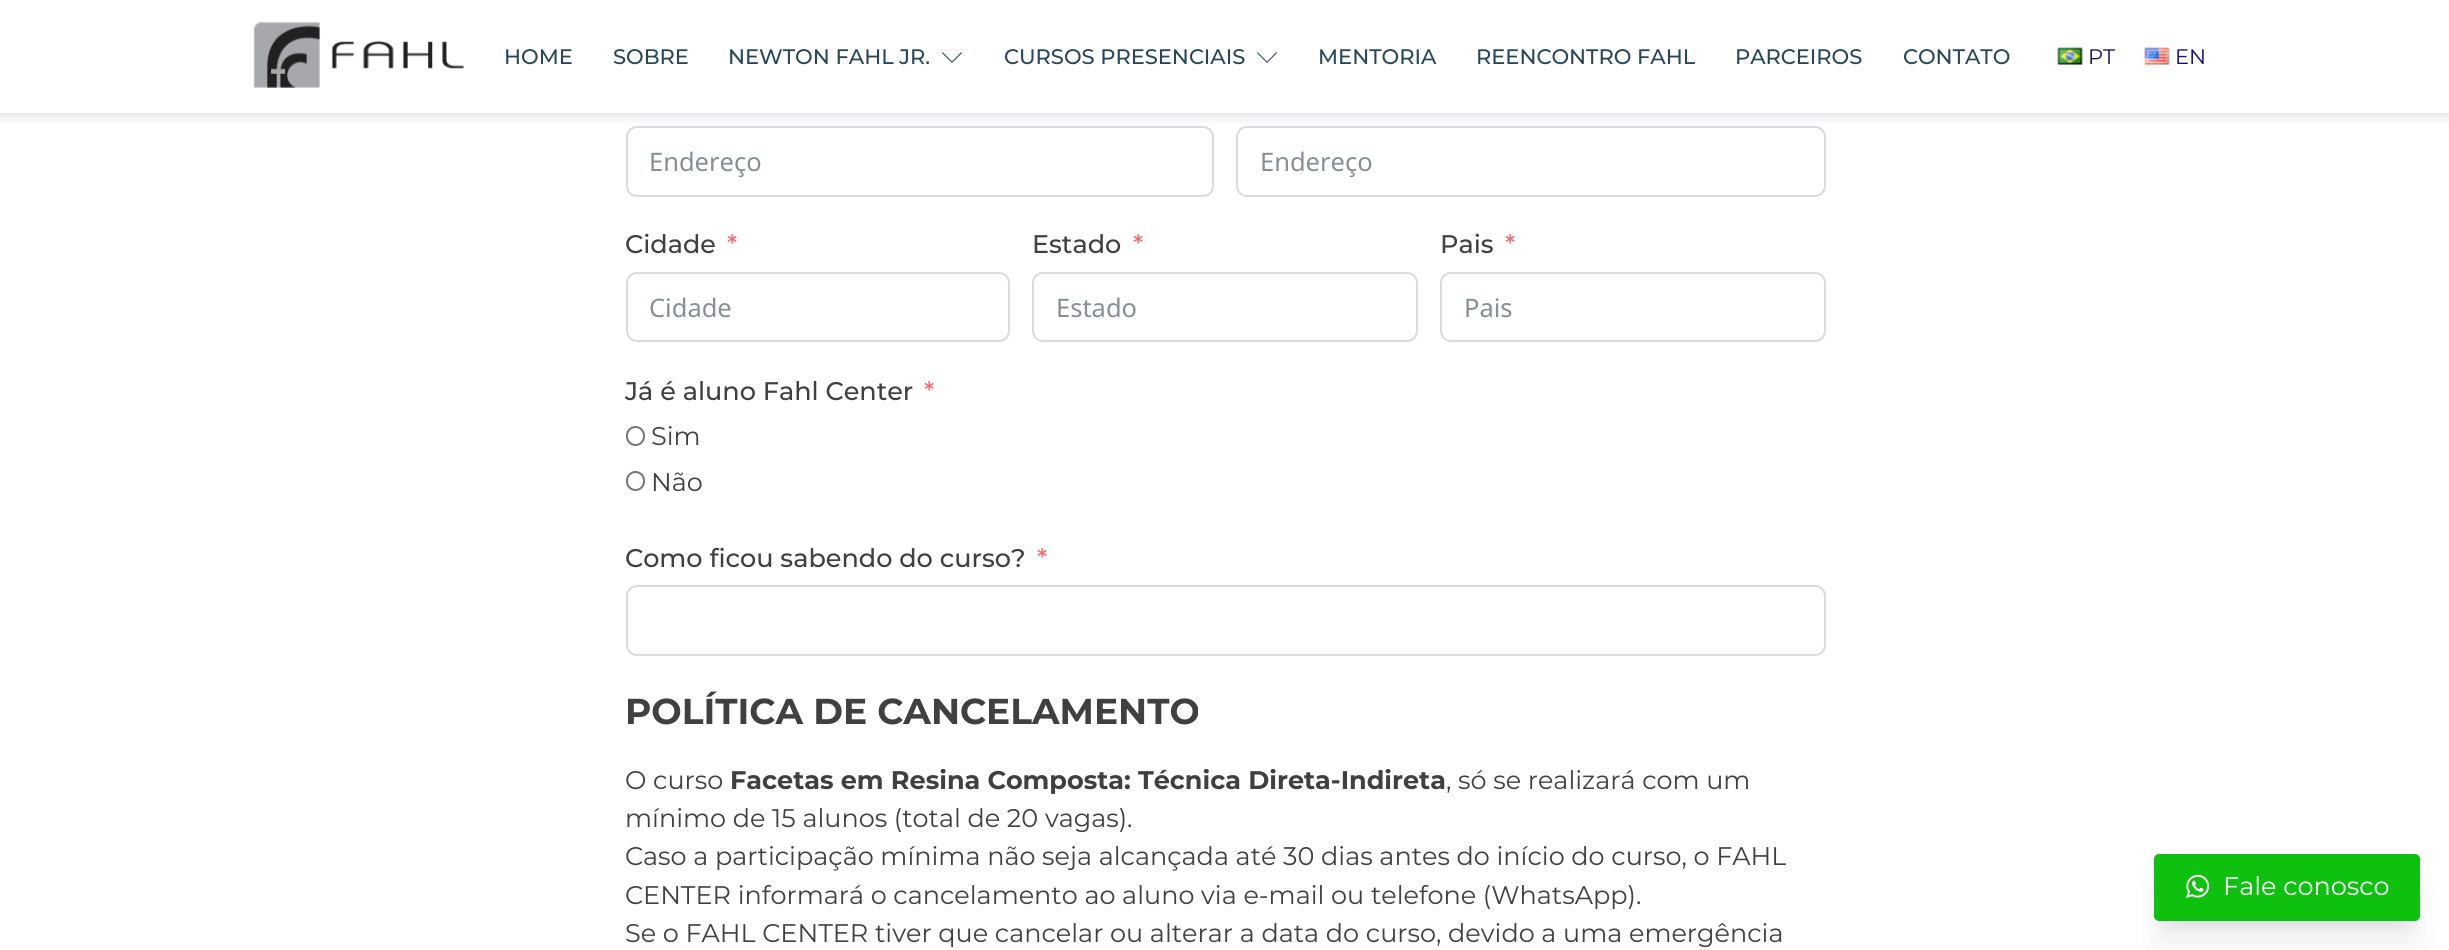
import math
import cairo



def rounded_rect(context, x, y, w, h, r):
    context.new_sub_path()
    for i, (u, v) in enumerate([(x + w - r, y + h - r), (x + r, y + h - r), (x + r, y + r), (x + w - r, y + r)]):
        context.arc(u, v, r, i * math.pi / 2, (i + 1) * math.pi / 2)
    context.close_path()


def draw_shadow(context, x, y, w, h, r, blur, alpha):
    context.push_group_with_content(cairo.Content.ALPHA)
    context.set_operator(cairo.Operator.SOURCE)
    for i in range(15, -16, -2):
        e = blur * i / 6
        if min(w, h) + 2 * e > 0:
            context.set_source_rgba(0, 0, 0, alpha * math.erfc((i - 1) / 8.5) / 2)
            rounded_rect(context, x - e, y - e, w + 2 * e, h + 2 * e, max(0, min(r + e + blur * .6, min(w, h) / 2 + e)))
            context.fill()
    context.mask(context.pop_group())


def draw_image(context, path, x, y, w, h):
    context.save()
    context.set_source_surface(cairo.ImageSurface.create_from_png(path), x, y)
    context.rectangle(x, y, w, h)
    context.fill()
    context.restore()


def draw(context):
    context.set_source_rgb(1, 1, 1)
    context.paint()
    rounded_rect(context, 627, 127, 586, 69, 10)
    context.set_source_rgb(218 / 255, 219 / 255, 221 / 255)
    context.stroke()
    rounded_rect(context, 1237, 127, 588, 69, 10)
    context.stroke()
    context.set_source_rgb(0, 0, 80 / 255)
    draw_shadow(context, 0, 0, 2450, 113, 0, 7.5, 0.2)
    context.set_source_rgb(1, 1, 1)
    context.rectangle(0, 0, 2449, 113)
    context.fill()
    draw_image(context, "images/1.png", 253, 21, 211, 67)
    draw_image(context, "images/2.png", 942, 52, 20, 11)
    draw_image(context, "images/2.png", 1257, 52, 20, 11)
    draw_image(context, "images/3.png", 2057, 47, 26, 18)
    draw_image(context, "images/4.png", 2144, 47, 26, 18)
    rounded_rect(context, 627, 273, 382, 68, 10)
    context.set_source_rgb(218 / 255, 219 / 255, 221 / 255)
    context.stroke()
    rounded_rect(context, 1033, 273, 384, 68, 10)
    context.stroke()
    rounded_rect(context, 1441, 273, 384, 68, 10)
    context.stroke()
    rounded_rect(context, 627, 427, 17, 18, 8.5)
    context.set_source_rgb(118 / 255, 118 / 255, 118 / 255)
    context.stroke()
    rounded_rect(context, 627, 472, 17, 18, 8.5)
    context.stroke()
    rounded_rect(context, 627, 586, 1198, 69, 10)
    context.set_source_rgb(218 / 255, 219 / 255, 221 / 255)
    context.stroke()
    context.set_source_rgb(0, 0, 0)
    draw_shadow(context, 2162, 888, 250, 53, 0, 18, 0.08)
    draw_shadow(context, 2162, 873, 250, 53, 0, 7.5, 0.06)
    context.set_source_rgb(15 / 255, 193 / 255, 15 / 255)
    rounded_rect(context, 2154, 854, 266, 67, 5)
    context.fill()
    draw_image(context, "images/5.png", 2186, 874, 24, 25)
    context.select_font_face("Montserrat Medium")
    context.set_font_size(21)
    context.set_source_rgb(39 / 255, 70 / 255, 89 / 255)
    context.move_to(504, 64)
    context.show_text("HOME")
    context.move_to(613, 64)
    context.show_text("SOBRE")
    context.move_to(728, 64)
    context.show_text("NEWTON FAHL JR.")
    context.move_to(1004, 64)
    context.show_text("CURSOS PRESENCIAIS")
    context.move_to(1318, 64)
    context.show_text("MENTORIA")
    context.move_to(1476, 64)
    context.show_text("REENCONTRO FAHL")
    context.move_to(1735, 64)
    context.show_text("PARCEIROS")
    context.move_to(1903, 64)
    context.show_text("CONTATO")
    context.select_font_face("Montserrat")
    context.set_source_rgb(22 / 255, 14 / 255, 112 / 255)
    context.move_to(2088, 64)
    context.show_text("PT")
    context.move_to(2175, 64)
    context.show_text("EN")
    context.select_font_face("Noto Sans")
    context.set_font_size(25.5)
    context.set_source_rgb(134 / 255, 142 / 255, 150 / 255)
    context.move_to(649, 171)
    context.show_text("Endereço")
    context.move_to(1260, 171)
    context.show_text("Endereço")
    context.select_font_face("Montserrat Medium")
    context.set_source_rgb(64 / 255, 64 / 255, 64 / 255)
    context.move_to(625, 253)
    context.show_text("Cidade")
    context.set_source_rgb(245 / 255, 108 / 255, 108 / 255)
    context.move_to(727, 253)
    context.show_text("*")
    context.select_font_face("Noto Sans")
    context.set_source_rgb(134 / 255, 142 / 255, 150 / 255)
    context.move_to(649, 317)
    context.show_text("Cidade")
    context.select_font_face("Montserrat Medium")
    context.set_source_rgb(64 / 255, 64 / 255, 64 / 255)
    context.move_to(1032, 253)
    context.show_text("Estado")
    context.set_source_rgb(245 / 255, 108 / 255, 108 / 255)
    context.move_to(1133, 253)
    context.show_text("*")
    context.select_font_face("Noto Sans")
    context.set_source_rgb(134 / 255, 142 / 255, 150 / 255)
    context.move_to(1056, 317)
    context.show_text("Estado")
    context.select_font_face("Montserrat Medium")
    context.set_source_rgb(64 / 255, 64 / 255, 64 / 255)
    context.move_to(1440, 253)
    context.show_text("Pais")
    context.set_source_rgb(245 / 255, 108 / 255, 108 / 255)
    context.move_to(1505, 253)
    context.show_text("*")
    context.select_font_face("Noto Sans")
    context.set_source_rgb(134 / 255, 142 / 255, 150 / 255)
    context.move_to(1464, 317)
    context.show_text("Pais")
    context.select_font_face("Montserrat Medium")
    context.set_source_rgb(64 / 255, 64 / 255, 64 / 255)
    context.move_to(625, 400)
    context.show_text("Já é aluno Fahl Center")
    context.set_source_rgb(245 / 255, 108 / 255, 108 / 255)
    context.move_to(924, 400)
    context.show_text("*")
    context.select_font_face("Montserrat")
    context.set_source_rgb(64 / 255, 64 / 255, 64 / 255)
    context.move_to(651, 445)
    context.show_text("Sim")
    context.move_to(651, 491)
    context.show_text("Não")
    context.select_font_face("Montserrat Medium")
    context.move_to(625, 567)
    context.show_text("Como ficou sabendo do curso?")
    context.set_source_rgb(245 / 255, 108 / 255, 108 / 255)
    context.move_to(1037, 567)
    context.show_text("*")
    context.select_font_face("Montserrat", cairo.FontSlant.NORMAL, cairo.FontWeight.BOLD)
    context.set_font_size(36)
    context.set_source_rgb(64 / 255, 64 / 255, 64 / 255)
    context.move_to(625, 724)
    context.show_text("POLÍTICA DE CANCELAMENTO")
    context.select_font_face("Montserrat")
    context.set_font_size(25.5)
    context.move_to(625, 789)
    context.show_text("O curso")
    context.select_font_face("Montserrat", cairo.FontSlant.NORMAL, cairo.FontWeight.BOLD)
    context.move_to(730, 789)
    context.show_text("Facetas em Resina Composta: Técnica Direta-Indireta")
    context.select_font_face("Montserrat")
    context.move_to(1446, 789)
    context.show_text(", só se realizará com um")
    context.move_to(625, 827)
    context.show_text("mínimo de 15 alunos (total de 20 vagas).")
    context.move_to(625, 865)
    context.show_text("Caso a participação mínima não seja alcançada até 30 dias antes do início do curso, o FAHL")
    context.move_to(625, 904)
    context.show_text("CENTER informará o cancelamento ao aluno via e-mail ou telefone (WhatsApp).")
    context.move_to(625, 942)
    context.show_text("Se o FAHL CENTER tiver que cancelar ou alterar a data do curso, devido a uma emergência")
    context.set_source_rgb(1, 1, 1)
    context.move_to(2223, 895)
    context.show_text("Fale conosco")


surface = cairo.ImageSurface(cairo.Format.RGB24, 2449, 950)
context = cairo.Context(surface)
options = cairo.FontOptions()
options.set_hint_metrics(cairo.HintMetrics.OFF)
options.set_hint_style(cairo.HintStyle.NONE)
context.set_font_options(options)
context.set_miter_limit(4)
draw(context)
surface.write_to_png("out.png")
